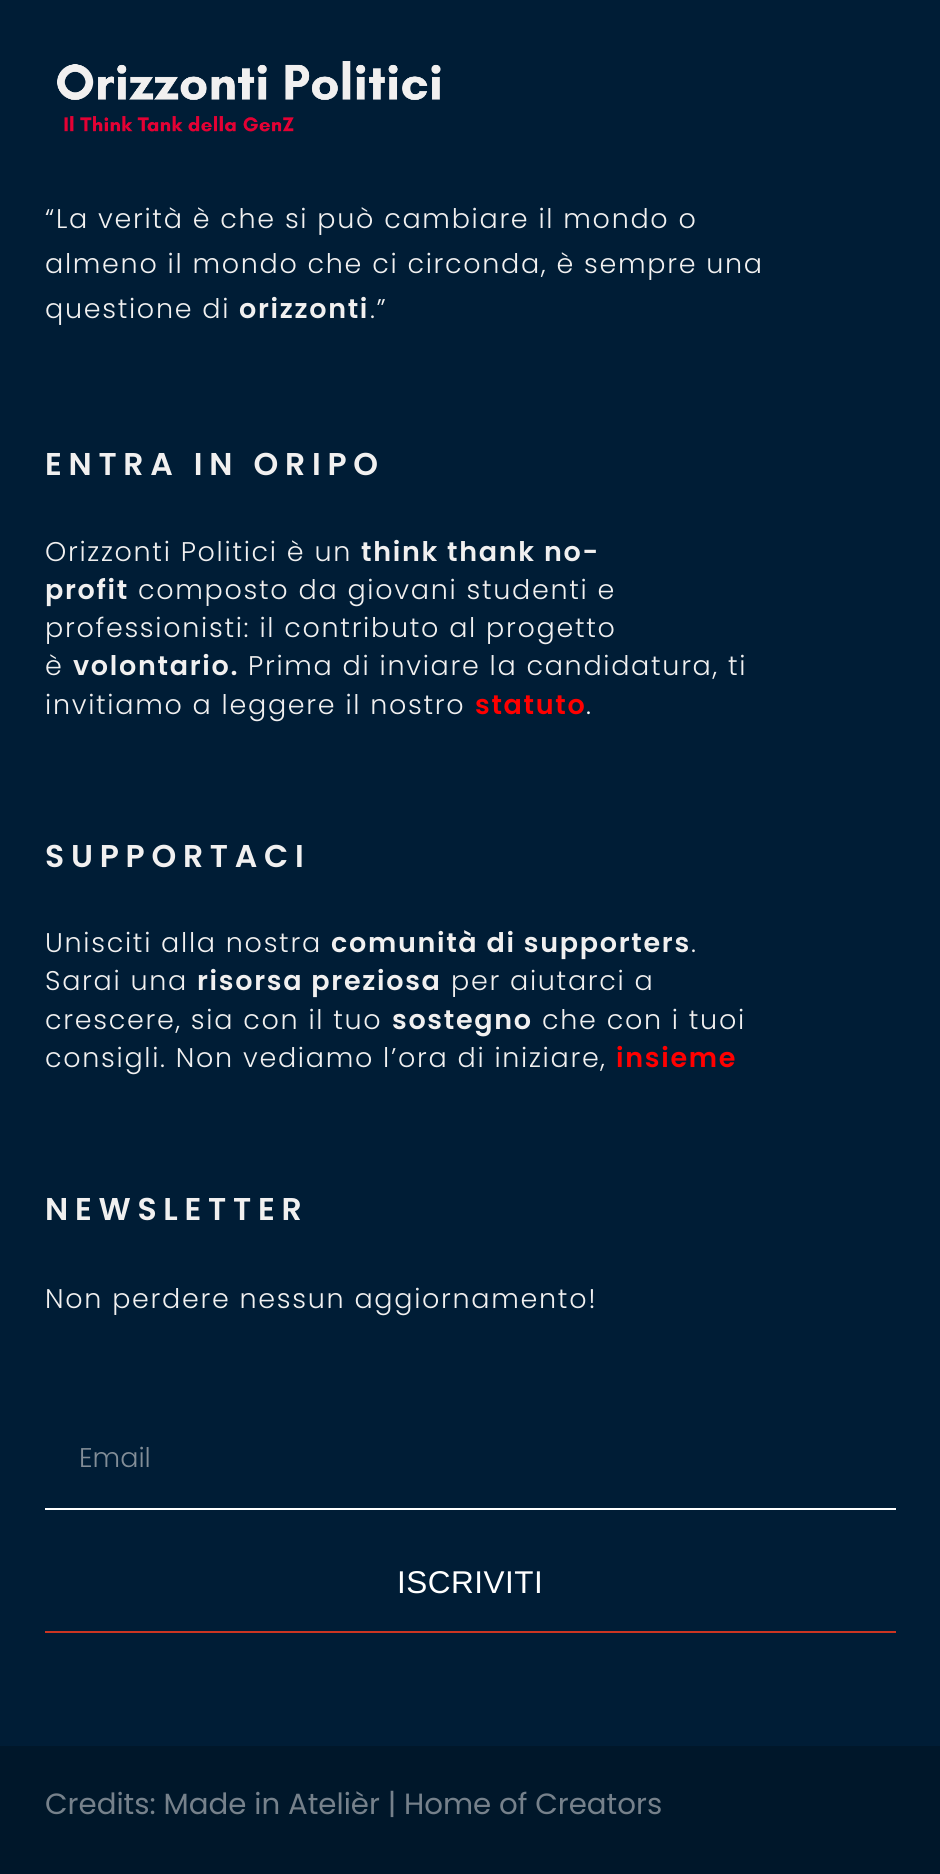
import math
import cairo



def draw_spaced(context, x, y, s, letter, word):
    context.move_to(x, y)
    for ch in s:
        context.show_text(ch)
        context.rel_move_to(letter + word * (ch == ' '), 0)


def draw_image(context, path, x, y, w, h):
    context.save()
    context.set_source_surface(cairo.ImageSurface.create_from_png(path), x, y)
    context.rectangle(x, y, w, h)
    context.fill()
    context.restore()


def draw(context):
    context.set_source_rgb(0, 29 / 255, 54 / 255)
    context.paint()
    draw_image(context, "images/1.png", 57, 61, 384, 71)
    context.set_source_rgb(1, 1, 1)
    context.rectangle(45, 1508, 851, 2)
    context.fill()
    context.set_source_rgb(203 / 255, 53 / 255, 34 / 255)
    context.rectangle(45, 1631, 851, 2)
    context.fill()
    context.set_source_rgb(0, 23 / 255, 42 / 255)
    context.rectangle(0, 1746, 940, 128)
    context.fill()
    context.select_font_face("Poppins Light")
    context.set_font_size(27)
    context.set_source_rgb(241 / 255, 240 / 255, 240 / 255)
    draw_spaced(context, 45, 228, "“La verità è che si può cambiare il mondo o", 1.7, 0)
    draw_spaced(context, 45, 273, "almeno il mondo che ci circonda, è sempre una", 1.7, 0)
    draw_spaced(context, 45, 318, "questione di", 1.7, 0)
    context.select_font_face("Poppins SemiBold")
    draw_spaced(context, 239, 318, "orizzonti", 1.7, 0)
    context.select_font_face("Poppins Light")
    draw_spaced(context, 370, 318, ".”", 1.7, 0)
    context.select_font_face("Poppins SemiBold")
    context.set_font_size(31.5)
    draw_spaced(context, 45, 475, "ENTRA IN ORIPO", 6.75, 0)
    context.select_font_face("Poppins Light")
    context.set_font_size(27)
    draw_spaced(context, 45, 561, "Orizzonti Politici è un", 1.7, 0)
    context.select_font_face("Poppins SemiBold")
    draw_spaced(context, 361, 561, "think thank no-", 1.7, 0)
    draw_spaced(context, 45, 599, "profit", 1.7, 0)
    context.select_font_face("Poppins Light")
    draw_spaced(context, 138, 599, "composto da giovani studenti e", 1.7, 0)
    draw_spaced(context, 45, 637, "professionisti: il contributo al progetto", 1.7, 0)
    draw_spaced(context, 45, 675, "è", 1.7, 0)
    context.select_font_face("Poppins SemiBold")
    draw_spaced(context, 73, 675, "volontario.", 1.7, 0)
    context.select_font_face("Poppins Light")
    draw_spaced(context, 248, 675, "Prima di inviare la candidatura, ti", 1.7, 0)
    draw_spaced(context, 45, 714, "invitiamo a leggere il nostro", 1.7, 0)
    context.select_font_face("Poppins SemiBold")
    context.set_source_rgb(1, 0, 0)
    draw_spaced(context, 475, 714, "statuto", 1.7, 0)
    context.select_font_face("Poppins Light")
    context.set_source_rgb(1, 1, 1)
    draw_spaced(context, 586, 714, ".", 1.7, 0)
    context.select_font_face("Poppins SemiBold")
    context.set_font_size(31.5)
    context.set_source_rgb(241 / 255, 240 / 255, 240 / 255)
    draw_spaced(context, 45, 867, "SUPPORTACI", 6.75, 0)
    context.select_font_face("Poppins Light")
    context.set_font_size(27)
    draw_spaced(context, 45, 952, "Unisciti alla nostra", 1.7, 0)
    context.select_font_face("Poppins SemiBold")
    draw_spaced(context, 331, 952, "comunità di supporters", 1.7, 0)
    context.select_font_face("Poppins Light")
    draw_spaced(context, 691, 952, ".", 1.7, 0)
    draw_spaced(context, 45, 990, "Sarai una", 1.7, 0)
    context.select_font_face("Poppins SemiBold")
    draw_spaced(context, 197, 990, "risorsa preziosa", 1.7, 0)
    context.select_font_face("Poppins Light")
    draw_spaced(context, 451, 990, "per aiutarci a", 1.7, 0)
    draw_spaced(context, 45, 1029, "crescere, sia con il tuo", 1.7, 0)
    context.select_font_face("Poppins SemiBold")
    draw_spaced(context, 392, 1029, "sostegno", 1.7, 0)
    context.select_font_face("Poppins Light")
    draw_spaced(context, 542, 1029, "che con i tuoi", 1.7, 0)
    draw_spaced(context, 45, 1067, "consigli. Non vediamo l’ora di iniziare,", 1.7, 0)
    context.select_font_face("Poppins SemiBold")
    context.set_source_rgb(1, 0, 0)
    draw_spaced(context, 616, 1067, "insieme", 1.7, 0)
    context.set_font_size(31.5)
    context.set_source_rgb(241 / 255, 240 / 255, 240 / 255)
    draw_spaced(context, 45, 1220, "NEWSLETTER", 6.75, 0)
    context.select_font_face("Poppins Light")
    context.set_font_size(27)
    draw_spaced(context, 45, 1308, "Non perdere nessun aggiornamento!", 1.7, 0)
    context.set_source_rgb(131 / 255, 142 / 255, 152 / 255)
    context.move_to(79, 1467)
    context.show_text("Email")
    context.select_font_face("Liberation Sans")
    context.set_font_size(31.5)
    context.set_source_rgb(1, 1, 1)
    draw_spaced(context, 397, 1593, "ISCRIVITI", 0.5, 0)
    context.select_font_face("Poppins")
    context.set_font_size(29.25)
    context.set_source_rgb(118 / 255, 129 / 255, 139 / 255)
    context.move_to(45, 1814)
    context.show_text("Credits: Made in Atelièr | Home of Creators")


surface = cairo.ImageSurface(cairo.Format.RGB24, 940, 1874)
context = cairo.Context(surface)
options = cairo.FontOptions()
options.set_hint_metrics(cairo.HintMetrics.OFF)
options.set_hint_style(cairo.HintStyle.NONE)
context.set_font_options(options)
context.set_miter_limit(4)
draw(context)
surface.write_to_png("out.png")
